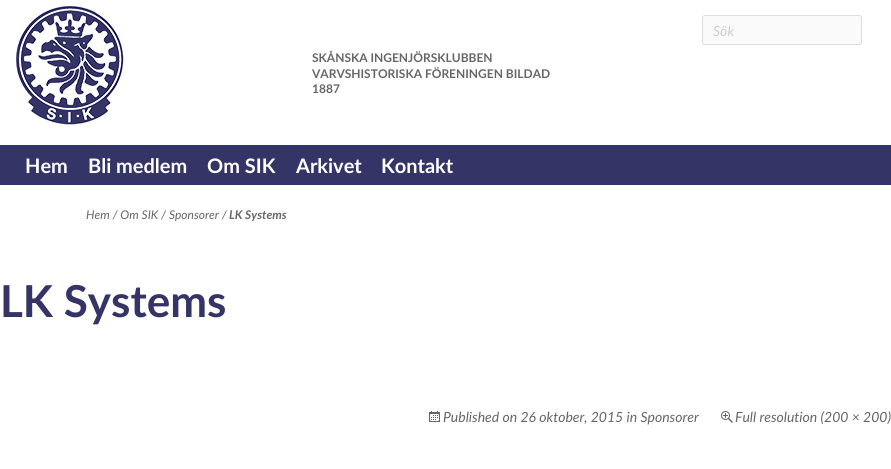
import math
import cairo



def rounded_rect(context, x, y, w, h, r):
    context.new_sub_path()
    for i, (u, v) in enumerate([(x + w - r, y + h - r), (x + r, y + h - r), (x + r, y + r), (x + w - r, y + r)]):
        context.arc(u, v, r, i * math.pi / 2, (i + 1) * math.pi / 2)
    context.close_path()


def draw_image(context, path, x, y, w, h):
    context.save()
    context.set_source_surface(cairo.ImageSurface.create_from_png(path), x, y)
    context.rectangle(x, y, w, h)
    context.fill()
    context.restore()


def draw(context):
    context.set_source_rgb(1, 1, 1)
    context.paint()
    draw_image(context, "images/1.png", 16, 5, 108, 120)
    context.set_source_rgb(250 / 255, 250 / 255, 250 / 255)
    rounded_rect(context, 702.5, 15.5, 159, 29, 2.5)
    context.fill_preserve()
    context.set_source_rgb(221 / 255, 221 / 255, 221 / 255)
    context.set_line_width(1)
    context.stroke()
    context.set_source_rgb(52 / 255, 52 / 255, 102 / 255)
    context.rectangle(0, 145, 891, 40)
    context.fill()
    draw_image(context, "images/2.png", 429, 411, 11, 11)
    draw_image(context, "images/3.png", 721, 411, 12, 12)
    context.select_font_face("Lato", cairo.FontSlant.ITALIC)
    context.set_font_size(14)
    context.set_source_rgb(204 / 255, 204 / 255, 204 / 255)
    context.move_to(713, 36)
    context.show_text("Sök")
    context.select_font_face("Lato", cairo.FontSlant.NORMAL, cairo.FontWeight.BOLD)
    context.set_font_size(12)
    context.set_source_rgb(102 / 255, 102 / 255, 102 / 255)
    context.move_to(312, 62)
    context.show_text("SKÅNSKA INGENJÖRSKLUBBEN")
    context.move_to(312, 78)
    context.show_text("VARVSHISTORISKA FÖRENINGEN BILDAD")
    context.move_to(312, 93)
    context.show_text("1887")
    context.set_font_size(20)
    context.set_source_rgb(1, 1, 1)
    context.move_to(25, 173)
    context.show_text("Hem")
    context.move_to(88, 173)
    context.show_text("Bli medlem")
    context.move_to(207, 173)
    context.show_text("Om SIK")
    context.move_to(296, 173)
    context.show_text("Arkivet")
    context.move_to(381, 173)
    context.show_text("Kontakt")
    context.select_font_face("Lato", cairo.FontSlant.ITALIC)
    context.set_font_size(12)
    context.set_source_rgb(102 / 255, 102 / 255, 102 / 255)
    context.move_to(86, 219)
    context.show_text("Hem / Om SIK / Sponsorer /")
    context.select_font_face("Lato", cairo.FontSlant.ITALIC, cairo.FontWeight.BOLD)
    context.move_to(229, 219)
    context.show_text("LK Systems")
    context.select_font_face("Lato", cairo.FontSlant.NORMAL, cairo.FontWeight.BOLD)
    context.set_font_size(44)
    context.set_source_rgb(52 / 255, 52 / 255, 102 / 255)
    context.move_to(0, 317)
    context.show_text("LK Systems")
    context.select_font_face("Lato", cairo.FontSlant.ITALIC)
    context.set_font_size(14)
    context.set_source_rgb(102 / 255, 102 / 255, 102 / 255)
    context.move_to(443, 422)
    context.show_text("Published on 26 oktober, 2015 in Sponsorer")
    context.move_to(735, 422)
    context.show_text("Full resolution (200 × 200)")


surface = cairo.ImageSurface(cairo.Format.RGB24, 891, 469)
context = cairo.Context(surface)
options = cairo.FontOptions()
options.set_hint_metrics(cairo.HintMetrics.OFF)
options.set_hint_style(cairo.HintStyle.NONE)
context.set_font_options(options)
context.set_miter_limit(4)
draw(context)
surface.write_to_png("out.png")
